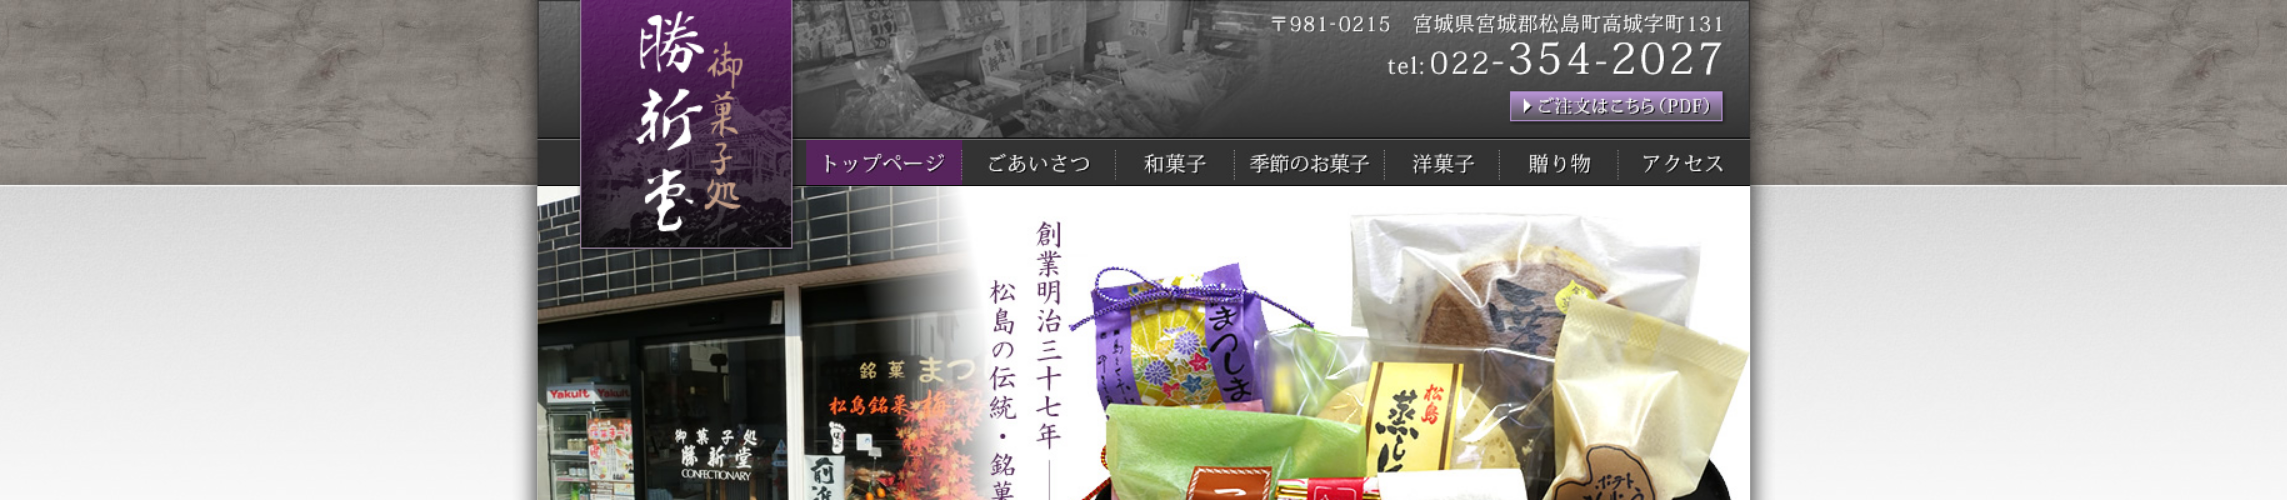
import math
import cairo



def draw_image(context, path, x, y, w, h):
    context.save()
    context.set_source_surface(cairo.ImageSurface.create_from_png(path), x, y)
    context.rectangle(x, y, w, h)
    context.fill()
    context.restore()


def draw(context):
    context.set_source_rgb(1, 1, 1)
    context.paint()
    draw_image(context, "images/1.png", 0, 0, 2287, 500)
    draw_image(context, "images/2.png", 512, 0, 1263, 500)
    draw_image(context, "images/13.png", 537, 186, 1213, 314)
    draw_image(context, "images/3.png", 577, 0, 221, 254)
    draw_image(context, "images/4.png", 1271, 13, 452, 63)
    draw_image(context, "images/5.png", 1509, 90, 218, 35)
    draw_image(context, "images/6.png", 806, 140, 157, 45)
    draw_image(context, "images/7.png", 962, 140, 155, 45)
    draw_image(context, "images/8.png", 1116, 140, 119, 41)
    draw_image(context, "images/9.png", 1235, 140, 150, 41)
    draw_image(context, "images/10.png", 1385, 140, 115, 41)
    draw_image(context, "images/11.png", 1500, 140, 119, 40)
    draw_image(context, "images/12.png", 1618, 140, 132, 45)


surface = cairo.ImageSurface(cairo.Format.RGB24, 2287, 500)
context = cairo.Context(surface)
options = cairo.FontOptions()
options.set_hint_metrics(cairo.HintMetrics.OFF)
options.set_hint_style(cairo.HintStyle.NONE)
context.set_font_options(options)
context.set_miter_limit(4)
draw(context)
surface.write_to_png("out.png")
